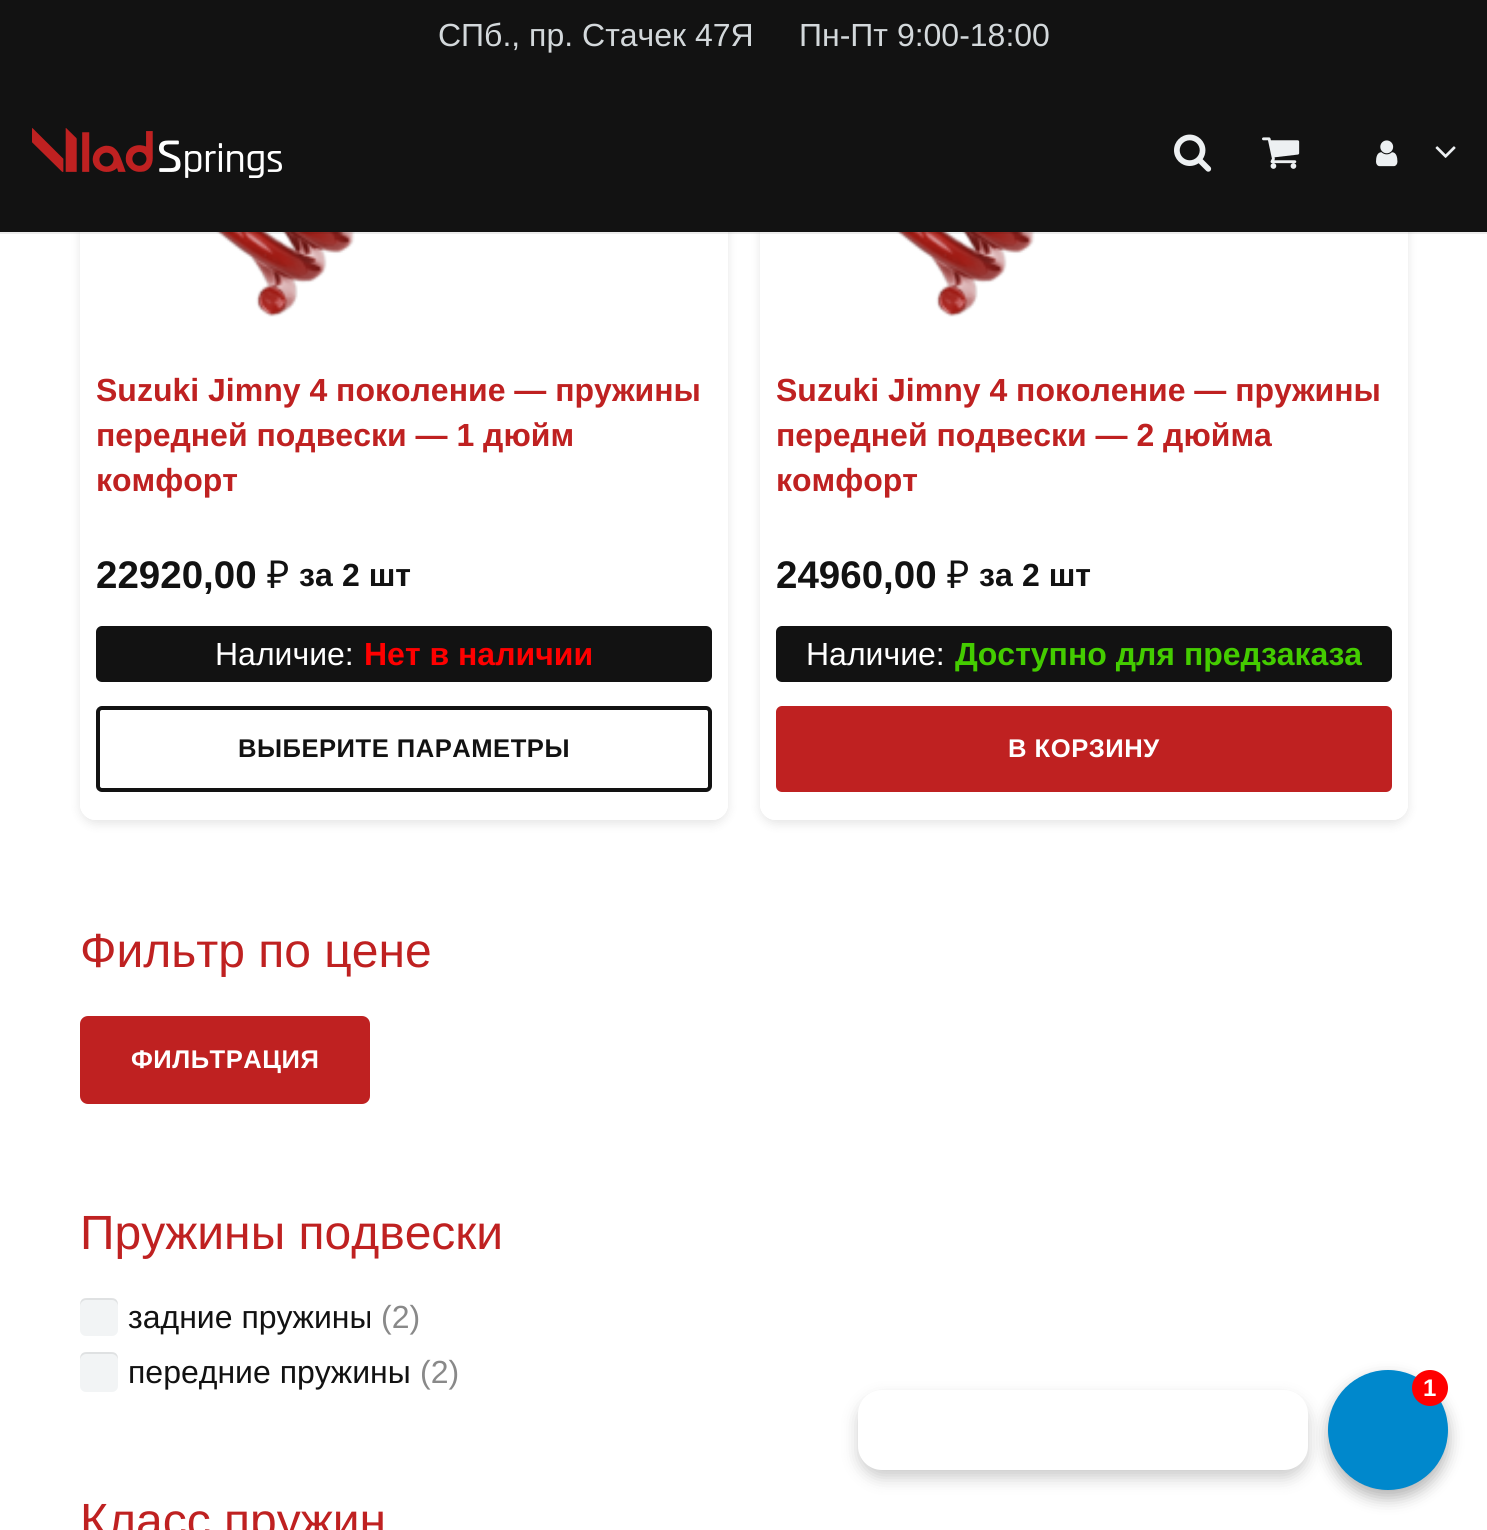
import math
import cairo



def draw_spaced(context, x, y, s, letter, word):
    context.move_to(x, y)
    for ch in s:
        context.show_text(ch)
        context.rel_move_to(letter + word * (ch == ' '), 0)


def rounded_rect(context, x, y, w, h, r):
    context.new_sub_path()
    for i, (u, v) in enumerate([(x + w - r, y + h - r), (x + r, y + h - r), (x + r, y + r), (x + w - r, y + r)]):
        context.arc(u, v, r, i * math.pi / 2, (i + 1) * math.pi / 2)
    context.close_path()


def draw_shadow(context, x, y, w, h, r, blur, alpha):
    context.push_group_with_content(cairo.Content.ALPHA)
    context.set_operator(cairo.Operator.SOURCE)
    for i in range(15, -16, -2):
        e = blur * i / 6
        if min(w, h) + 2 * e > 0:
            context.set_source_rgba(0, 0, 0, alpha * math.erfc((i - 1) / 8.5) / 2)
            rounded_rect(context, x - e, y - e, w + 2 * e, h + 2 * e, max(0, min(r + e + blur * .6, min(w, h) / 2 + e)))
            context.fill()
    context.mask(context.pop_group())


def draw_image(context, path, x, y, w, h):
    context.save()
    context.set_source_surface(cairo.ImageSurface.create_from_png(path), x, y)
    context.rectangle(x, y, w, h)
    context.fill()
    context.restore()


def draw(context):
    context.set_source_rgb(1, 1, 1)
    context.paint()
    context.save()
    context.set_fill_rule(cairo.FillRule.EVEN_ODD)
    context.new_path()
    context.move_to(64, 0)
    context.line_to(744, 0)
    context.line_to(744, 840)
    context.line_to(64, 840)
    context.close_path()
    context.move_to(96, -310)
    context.line_to(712, -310)
    context.curve_to(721, -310, 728, -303, 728, -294)
    context.line_to(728, 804)
    context.curve_to(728, 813, 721, 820, 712, 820)
    context.line_to(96, 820)
    context.curve_to(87, 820, 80, 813, 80, 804)
    context.line_to(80, -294)
    context.curve_to(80, -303, 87, -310, 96, -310)
    context.close_path()
    context.clip()
    context.set_source_rgb(0, 0, 0)
    draw_shadow(context, 80, -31, 648, 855, 16, 5, 0.1)
    context.restore()
    context.set_source_rgba(1, 1, 1, 0.85)
    rounded_rect(context, 80, -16, 648, 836, 16)
    context.fill()
    context.save()
    context.set_fill_rule(cairo.FillRule.EVEN_ODD)
    context.new_path()
    context.move_to(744, 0)
    context.line_to(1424, 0)
    context.line_to(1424, 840)
    context.line_to(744, 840)
    context.close_path()
    context.move_to(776, -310)
    context.line_to(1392, -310)
    context.curve_to(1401, -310, 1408, -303, 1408, -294)
    context.line_to(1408, 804)
    context.curve_to(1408, 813, 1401, 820, 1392, 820)
    context.line_to(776, 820)
    context.curve_to(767, 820, 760, 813, 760, 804)
    context.line_to(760, -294)
    context.curve_to(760, -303, 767, -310, 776, -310)
    context.close_path()
    context.clip()
    context.set_source_rgb(0, 0, 0)
    draw_shadow(context, 760, -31, 648, 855, 16, 5, 0.1)
    context.restore()
    rounded_rect(context, 760, -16, 648, 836, 16)
    context.fill()
    context.set_source_rgb(18 / 255, 18 / 255, 18 / 255)
    context.rectangle(0, 0, 1487, 232)
    context.fill()
    draw_image(context, "images/6.png", 216, 232, 139, 85)
    draw_image(context, "images/6.png", 896, 232, 139, 85)
    context.set_source_rgba(0, 0, 0, 0.08)
    context.rectangle(0, 232, 1487, 2)
    context.fill()
    draw_image(context, "images/1.png", 32, 128, 250, 50)
    draw_image(context, "images/2.png", 1174, 134, 38, 38)
    draw_image(context, "images/3.png", 1262, 137, 38, 32)
    draw_image(context, "images/4.png", 1376, 140, 22, 27)
    draw_image(context, "images/5.png", 1435, 146, 21, 12)
    context.set_source_rgb(18 / 255, 18 / 255, 18 / 255)
    rounded_rect(context, 96, 626, 616, 56, 6)
    context.fill()
    rounded_rect(context, 98, 708, 612, 82, 4)
    context.set_line_width(4)
    context.stroke()
    rounded_rect(context, 776, 626, 616, 56, 6)
    context.fill()
    context.set_source_rgb(191 / 255, 33 / 255, 33 / 255)
    rounded_rect(context, 776, 706, 616, 86, 6)
    context.fill()
    rounded_rect(context, 80, 1016, 290, 88, 8)
    context.fill()
    context.set_source_rgb(242 / 255, 244 / 255, 245 / 255)
    rounded_rect(context, 80, 1298, 38, 38, 6)
    context.fill()
    context.set_source_rgba(0, 0, 0, 0.08)
    context.new_path()
    context.move_to(86, 1300)
    context.line_to(112, 1300)
    context.curve_to(115, 1300, 118, 1303, 118, 1306)
    context.curve_to(118, 1298, 114.5, 1298, 107.5, 1298)
    context.line_to(90.5, 1298)
    context.curve_to(83.5, 1298, 80, 1298, 80, 1306)
    context.curve_to(80, 1303, 83, 1300, 86, 1300)
    context.close_path()
    context.fill()
    context.set_source_rgb(242 / 255, 244 / 255, 245 / 255)
    rounded_rect(context, 80, 1352, 38, 40, 6)
    context.fill()
    context.set_source_rgba(0, 0, 0, 0.08)
    context.new_path()
    context.move_to(86, 1354)
    context.line_to(112, 1354)
    context.curve_to(115, 1354, 118, 1357, 118, 1360)
    context.curve_to(118, 1352, 114.5, 1352, 107.5, 1352)
    context.line_to(90.5, 1352)
    context.curve_to(83.5, 1352, 80, 1352, 80, 1360)
    context.curve_to(80, 1357, 83, 1354, 86, 1354)
    context.close_path()
    context.fill()
    context.set_source_rgb(0, 0, 0)
    draw_shadow(context, 858, 1398, 450, 80, 24, 8, 0.2)
    context.set_source_rgb(1, 1, 1)
    rounded_rect(context, 858, 1390, 450, 80, 24)
    context.fill()
    context.set_source_rgb(0, 0, 0)
    draw_shadow(context, 1328, 1378, 120, 120, 60, 8, 0.3)
    context.set_source_rgb(0, 136 / 255, 204 / 255)
    context.arc(1388, 1430, 60, 0, 2 * math.pi)
    context.fill()
    context.set_source_rgb(1, 0, 0)
    context.arc(1430, 1388, 18, 0, 2 * math.pi)
    context.fill()
    context.select_font_face("Liberation Sans")
    context.set_font_size(32)
    context.set_source_rgb(211 / 255, 216 / 255, 219 / 255)
    context.move_to(438, 46)
    context.show_text("СПб., пр. Стачек 47Я")
    context.move_to(799, 46)
    context.show_text("Пн-Пт 9:00-18:00")
    context.select_font_face("Liberation Sans", cairo.FontSlant.NORMAL, cairo.FontWeight.BOLD)
    context.set_source_rgb(191 / 255, 33 / 255, 33 / 255)
    context.move_to(96, 401)
    context.show_text("Suzuki Jimny 4 поколение — пружины")
    context.move_to(96, 446)
    context.show_text("передней подвески — 1 дюйм")
    context.move_to(96, 491)
    context.show_text("комфорт")
    context.set_font_size(38.5)
    context.set_source_rgb(18 / 255, 18 / 255, 18 / 255)
    context.move_to(96, 588)
    context.show_text("22920,00")
    context.select_font_face("Noto Sans")
    context.move_to(267, 588)
    context.show_text("₽")
    context.select_font_face("Liberation Sans", cairo.FontSlant.NORMAL, cairo.FontWeight.BOLD)
    context.set_font_size(32)
    context.move_to(299, 586)
    context.show_text("за")
    context.move_to(342, 586)
    context.show_text("2 шт")
    context.select_font_face("Liberation Sans")
    context.set_source_rgb(1, 1, 1)
    context.move_to(215, 665)
    context.show_text("Наличие:")
    context.select_font_face("Liberation Sans", cairo.FontSlant.NORMAL, cairo.FontWeight.BOLD)
    context.set_source_rgb(1, 0, 0)
    context.move_to(364, 665)
    context.show_text("Нет в наличии")
    context.set_font_size(25.6)
    context.set_source_rgb(18 / 255, 18 / 255, 18 / 255)
    draw_spaced(context, 238, 757, "ВЫБЕРИТЕ ПАРАМЕТРЫ", 0.5, 0)
    context.set_font_size(32)
    context.set_source_rgb(191 / 255, 33 / 255, 33 / 255)
    context.move_to(776, 401)
    context.show_text("Suzuki Jimny 4 поколение — пружины")
    context.move_to(776, 446)
    context.show_text("передней подвески — 2 дюйма")
    context.move_to(776, 491)
    context.show_text("комфорт")
    context.set_font_size(38.5)
    context.set_source_rgb(18 / 255, 18 / 255, 18 / 255)
    context.move_to(776, 588)
    context.show_text("24960,00")
    context.select_font_face("Noto Sans")
    context.move_to(947, 588)
    context.show_text("₽")
    context.select_font_face("Liberation Sans", cairo.FontSlant.NORMAL, cairo.FontWeight.BOLD)
    context.set_font_size(32)
    context.move_to(979, 586)
    context.show_text("за")
    context.move_to(1022, 586)
    context.show_text("2 шт")
    context.select_font_face("Liberation Sans")
    context.set_source_rgb(1, 1, 1)
    context.move_to(806, 665)
    context.show_text("Наличие:")
    context.select_font_face("Liberation Sans", cairo.FontSlant.NORMAL, cairo.FontWeight.BOLD)
    context.set_source_rgb(68 / 255, 204 / 255, 0)
    context.move_to(955, 665)
    context.show_text("Доступно для предзаказа")
    context.set_font_size(25.6)
    context.set_source_rgb(1, 1, 1)
    draw_spaced(context, 1008, 757, "В КОРЗИНУ", 0.5, 0)
    context.select_font_face("Liberation Sans")
    context.set_font_size(48)
    context.set_source_rgb(191 / 255, 33 / 255, 33 / 255)
    context.move_to(80, 967)
    context.show_text("Фильтр по цене")
    context.select_font_face("Liberation Sans", cairo.FontSlant.NORMAL, cairo.FontWeight.BOLD)
    context.set_font_size(25.6)
    context.set_source_rgb(1, 1, 1)
    draw_spaced(context, 131, 1068, "ФИЛЬТРАЦИЯ", 0.5, 0)
    context.select_font_face("Liberation Sans")
    context.set_font_size(48)
    context.set_source_rgb(191 / 255, 33 / 255, 33 / 255)
    context.move_to(80, 1249)
    context.show_text("Пружины подвески")
    context.set_font_size(32)
    context.set_source_rgb(18 / 255, 18 / 255, 18 / 255)
    context.move_to(128, 1328)
    context.show_text("задние пружины")
    context.set_source_rgb(137 / 255, 137 / 255, 137 / 255)
    context.move_to(381, 1328)
    context.show_text("(2)")
    context.set_source_rgb(18 / 255, 18 / 255, 18 / 255)
    context.move_to(128, 1383)
    context.show_text("передние пружины")
    context.set_source_rgb(137 / 255, 137 / 255, 137 / 255)
    context.move_to(420, 1383)
    context.show_text("(2)")
    context.set_font_size(48)
    context.set_source_rgb(191 / 255, 33 / 255, 33 / 255)
    context.move_to(80, 1537)
    context.show_text("Класс пружин")
    context.select_font_face("Liberation Sans", cairo.FontSlant.NORMAL, cairo.FontWeight.BOLD)
    context.set_font_size(24)
    context.set_source_rgb(1, 1, 1)
    context.move_to(1423, 1396)
    context.show_text("1")


surface = cairo.ImageSurface(cairo.Format.RGB24, 1487, 1530)
context = cairo.Context(surface)
options = cairo.FontOptions()
options.set_hint_metrics(cairo.HintMetrics.OFF)
options.set_hint_style(cairo.HintStyle.NONE)
context.set_font_options(options)
context.set_miter_limit(4)
draw(context)
surface.write_to_png("out.png")
